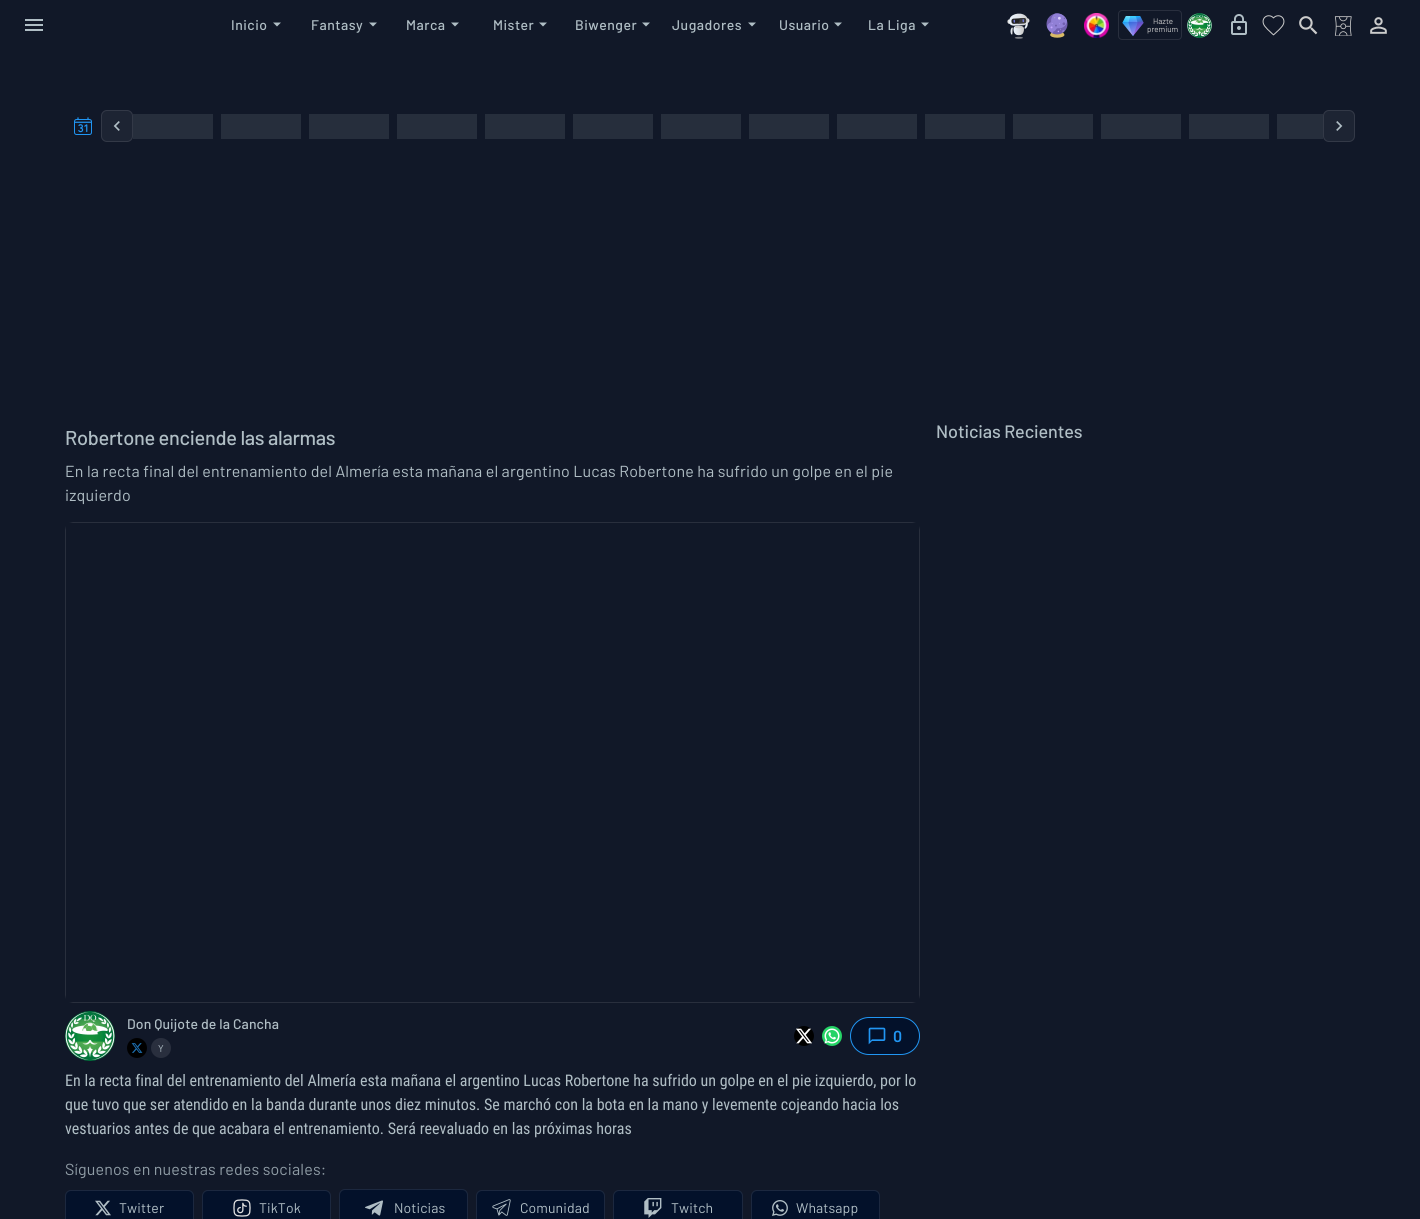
import math
import cairo



def draw_spaced(context, x, y, s, letter, word):
    context.move_to(x, y)
    for ch in s:
        context.show_text(ch)
        context.rel_move_to(letter + word * (ch == ' '), 0)


def rounded_rect(context, x, y, w, h, r):
    context.new_sub_path()
    for i, (u, v) in enumerate([(x + w - r, y + h - r), (x + r, y + h - r), (x + r, y + r), (x + w - r, y + r)]):
        context.arc(u, v, r, i * math.pi / 2, (i + 1) * math.pi / 2)
    context.close_path()


def draw_image(context, path, x, y, w, h):
    context.save()
    context.set_source_surface(cairo.ImageSurface.create_from_png(path), x, y)
    context.rectangle(x, y, w, h)
    context.fill()
    context.restore()


def draw(context):
    context.set_source_rgb(17 / 255, 24 / 255, 40 / 255)
    context.paint()
    draw_image(context, "images/1.png", 25, 19, 18, 12)
    context.set_source_rgb(176 / 255, 190 / 255, 197 / 255)
    context.new_path()
    context.move_to(273, 22.5)
    context.line_to(277, 26.5)
    context.line_to(281, 22.5)
    context.close_path()
    context.fill()
    context.new_path()
    context.move_to(369, 22.5)
    context.line_to(373, 26.5)
    context.line_to(377, 22.5)
    context.close_path()
    context.fill()
    context.new_path()
    context.move_to(451, 22.5)
    context.line_to(455, 26.5)
    context.line_to(459, 22.5)
    context.close_path()
    context.fill()
    context.new_path()
    context.move_to(539, 22.5)
    context.line_to(543, 26.5)
    context.line_to(547, 22.5)
    context.close_path()
    context.fill()
    context.new_path()
    context.move_to(642, 22.5)
    context.line_to(646, 26.5)
    context.line_to(650, 22.5)
    context.close_path()
    context.fill()
    context.new_path()
    context.move_to(748, 22.5)
    context.line_to(752, 26.5)
    context.line_to(756, 22.5)
    context.close_path()
    context.fill()
    context.new_path()
    context.move_to(834, 22.5)
    context.line_to(838, 26.5)
    context.line_to(842, 22.5)
    context.close_path()
    context.fill()
    context.new_path()
    context.move_to(921, 22.5)
    context.line_to(925, 26.5)
    context.line_to(929, 22.5)
    context.close_path()
    context.fill()
    draw_image(context, "images/2.png", 1007, 13, 23, 26)
    draw_image(context, "images/3.png", 1046, 13, 22, 25)
    draw_image(context, "images/4.png", 1084, 13, 25, 25)
    rounded_rect(context, 1118.5, 10.5, 63, 29, 3.5)
    context.set_source_rgb(41 / 255, 47 / 255, 62 / 255)
    context.set_line_width(1)
    context.stroke()
    draw_image(context, "images/5.png", 1122, 16, 22, 20)
    draw_image(context, "images/6.png", 1187, 13, 25, 25)
    draw_image(context, "images/7.png", 1231, 14, 16, 21)
    draw_image(context, "images/8.png", 1262, 15, 23, 21)
    draw_image(context, "images/9.png", 1299, 16, 19, 19)
    draw_image(context, "images/10.png", 1334, 16, 18, 20)
    draw_image(context, "images/11.png", 1370, 17, 17, 17)
    draw_image(context, "images/12.png", 74, 117, 18, 18)
    context.set_source_rgb(29 / 255, 36 / 255, 51 / 255)
    rounded_rect(context, 101, 110, 32, 32, 6)
    context.fill()
    rounded_rect(context, 101.5, 110.5, 31, 31, 5.5)
    context.set_source_rgba(1, 1, 1, 0.1)
    context.stroke()
    draw_image(context, "images/13.png", 113, 121, 7, 10)
    context.set_source_rgb(38 / 255, 46 / 255, 60 / 255)
    context.rectangle(133, 114, 80, 25)
    context.fill()
    context.rectangle(221, 114, 80, 25)
    context.fill()
    context.rectangle(309, 114, 80, 25)
    context.fill()
    context.rectangle(397, 114, 80, 25)
    context.fill()
    context.rectangle(485, 114, 80, 25)
    context.fill()
    context.rectangle(573, 114, 80, 25)
    context.fill()
    context.rectangle(661, 114, 80, 25)
    context.fill()
    context.rectangle(749, 114, 80, 25)
    context.fill()
    context.rectangle(837, 114, 80, 25)
    context.fill()
    context.rectangle(925, 114, 80, 25)
    context.fill()
    context.rectangle(1013, 114, 80, 25)
    context.fill()
    context.rectangle(1101, 114, 80, 25)
    context.fill()
    context.rectangle(1189, 114, 80, 25)
    context.fill()
    context.rectangle(1277, 114, 46, 25)
    context.fill()
    context.set_source_rgb(29 / 255, 36 / 255, 51 / 255)
    rounded_rect(context, 1323, 110, 32, 32, 6)
    context.fill()
    rounded_rect(context, 1323.5, 110.5, 31, 31, 5.5)
    context.set_source_rgba(1, 1, 1, 0.1)
    context.stroke()
    draw_image(context, "images/14.png", 1336, 121, 7, 10)
    context.set_source_rgb(41 / 255, 47 / 255, 61 / 255)
    context.set_fill_rule(cairo.FillRule.EVEN_ODD)
    context.new_path()
    context.move_to(65, 530)
    context.line_to(65, 995)
    context.line_to(66, 999)
    context.line_to(66, 526)
    context.close_path()
    context.move_to(73, 522)
    context.line_to(69, 523)
    context.line_to(916, 523)
    context.line_to(912, 522)
    context.close_path()
    context.move_to(920, 530)
    context.line_to(919, 526)
    context.line_to(919, 999)
    context.line_to(920, 995)
    context.close_path()
    context.move_to(912, 1003)
    context.line_to(916, 1002)
    context.line_to(69, 1002)
    context.line_to(73, 1003)
    context.close_path()
    context.fill()
    draw_image(context, "images/15.png", 65, 1011, 50, 50)
    context.set_source_rgb(0, 0, 0)
    context.arc(137, 1048, 10, 0, 2 * math.pi)
    context.fill()
    draw_image(context, "images/16.png", 131, 1043, 12, 10)
    context.set_source_rgb(41 / 255, 47 / 255, 62 / 255)
    context.arc(161, 1048, 10, 0, 2 * math.pi)
    context.fill()
    context.set_source_rgb(0, 0, 0)
    context.arc(804, 1036, 10, 0, 2 * math.pi)
    context.fill()
    draw_image(context, "images/17.png", 796, 1028, 16, 16)
    context.set_source_rgb(37 / 255, 211 / 255, 102 / 255)
    context.arc(832, 1036, 10, 0, 2 * math.pi)
    context.fill()
    draw_image(context, "images/18.png", 824, 1028, 16, 16)
    context.set_source_rgb(3 / 255, 17 / 255, 42 / 255)
    rounded_rect(context, 850.5, 1017.5, 69, 37, 18.5)
    context.fill_preserve()
    context.set_source_rgb(33 / 255, 150 / 255, 243 / 255)
    context.stroke()
    draw_image(context, "images/19.png", 868, 1027, 18, 18)
    context.set_source_rgb(3 / 255, 17 / 255, 42 / 255)
    rounded_rect(context, 65, 1190, 129, 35, 6)
    context.fill()
    rounded_rect(context, 65.5, 1190.5, 128, 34, 5.5)
    context.set_source_rgba(1, 1, 1, 0.1)
    context.stroke()
    draw_image(context, "images/20.png", 95, 1200, 16, 16)
    context.set_source_rgb(3 / 255, 17 / 255, 42 / 255)
    rounded_rect(context, 202, 1190, 129, 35, 6)
    context.fill()
    rounded_rect(context, 202.5, 1190.5, 128, 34, 5.5)
    context.set_source_rgba(1, 1, 1, 0.1)
    context.stroke()
    draw_image(context, "images/21.png", 233, 1199, 18, 18)
    context.set_source_rgb(3 / 255, 17 / 255, 42 / 255)
    rounded_rect(context, 339, 1189, 129, 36, 6)
    context.fill()
    rounded_rect(context, 339.5, 1189.5, 128, 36, 5.5)
    context.set_source_rgba(1, 1, 1, 0.1)
    context.stroke()
    draw_image(context, "images/22.png", 365, 1200, 18, 16)
    context.set_source_rgb(3 / 255, 17 / 255, 42 / 255)
    rounded_rect(context, 476, 1190, 129, 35, 6)
    context.fill()
    rounded_rect(context, 476.5, 1190.5, 128, 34, 5.5)
    context.set_source_rgba(1, 1, 1, 0.1)
    context.stroke()
    draw_image(context, "images/23.png", 492, 1199, 19, 17)
    context.set_source_rgb(3 / 255, 17 / 255, 42 / 255)
    rounded_rect(context, 613, 1190, 130, 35, 6)
    context.fill()
    rounded_rect(context, 613.5, 1190.5, 129, 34, 5.5)
    context.set_source_rgba(1, 1, 1, 0.1)
    context.stroke()
    draw_image(context, "images/24.png", 644, 1198, 18, 20)
    context.set_source_rgb(3 / 255, 17 / 255, 42 / 255)
    rounded_rect(context, 751, 1190, 129, 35, 6)
    context.fill()
    rounded_rect(context, 751.5, 1190.5, 128, 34, 5.5)
    context.set_source_rgba(1, 1, 1, 0.1)
    context.stroke()
    draw_image(context, "images/25.png", 772, 1200, 16, 16)
    context.select_font_face("Barlow Medium")
    context.set_font_size(14)
    context.set_source_rgb(176 / 255, 190 / 255, 197 / 255)
    draw_spaced(context, 231, 30, "Inicio", 0.5, 0)
    draw_spaced(context, 311, 30, "Fantasy", 0.5, 0)
    draw_spaced(context, 406, 30, "Marca", 0.5, 0)
    draw_spaced(context, 493, 30, "Mister", 0.5, 0)
    draw_spaced(context, 575, 30, "Biwenger", 0.5, 0)
    draw_spaced(context, 672, 30, "Jugadores", 0.5, 0)
    draw_spaced(context, 779, 30, "Usuario", 0.5, 0)
    draw_spaced(context, 868, 30, "La Liga", 0.5, 0)
    context.select_font_face("Barlow")
    context.set_font_size(8)
    context.set_source_rgb(204 / 255, 204 / 255, 204 / 255)
    context.move_to(1153, 24)
    context.show_text("Hazte")
    context.move_to(1147, 32)
    context.show_text("premium")
    context.select_font_face("Barlow Medium")
    context.set_font_size(20)
    context.set_source_rgb(176 / 255, 190 / 255, 197 / 255)
    draw_spaced(context, 65, 445, "Robertone enciende las alarmas", -0.3, 0)
    context.select_font_face("Barlow")
    context.set_font_size(16)
    draw_spaced(context, 65, 477, "En la recta final del entrenamiento del Almería esta mañana el argentino Lucas Robertone ha sufrido un golpe en el pie", 0.15, 0)
    draw_spaced(context, 65, 501, "izquierdo", 0.15, 0)
    context.select_font_face("Barlow Medium")
    context.set_font_size(14)
    draw_spaced(context, 127, 1029, "Don Quijote de la Cancha", 0.1, 0)
    context.select_font_face("Barlow")
    context.set_font_size(10)
    context.move_to(158, 1052)
    context.show_text("Y")
    context.select_font_face("Barlow SemiBold")
    context.set_font_size(16)
    context.set_source_rgb(33 / 255, 150 / 255, 243 / 255)
    context.move_to(893, 1042)
    context.show_text("0")
    context.select_font_face("Roboto Condensed")
    context.set_source_rgb(176 / 255, 190 / 255, 197 / 255)
    context.move_to(65, 1086)
    context.show_text("En la recta final del entrenamiento del Almería esta mañana el argentino Lucas Robertone ha sufrido un golpe en el pie izquierdo, por lo")
    context.move_to(65, 1110)
    context.show_text("que tuvo que ser atendido en la banda durante unos diez minutos. Se marchó con la bota en la mano y levemente cojeando hacia los")
    context.move_to(65, 1134)
    context.show_text("vestuarios antes de que acabara el entrenamiento. Será reevaluado en las próximas horas")
    context.select_font_face("Barlow")
    context.set_source_rgb(144 / 255, 157 / 255, 166 / 255)
    draw_spaced(context, 65, 1175, "Síguenos en nuestras redes sociales:", 0.15, 0)
    context.set_font_size(14)
    context.set_source_rgb(176 / 255, 190 / 255, 197 / 255)
    draw_spaced(context, 119, 1213, "Twitter", 0.1, 0)
    draw_spaced(context, 259, 1213, "TikTok", 0.1, 0)
    draw_spaced(context, 394, 1213, "Noticias", 0.1, 0)
    draw_spaced(context, 520, 1213, "Comunidad", 0.1, 0)
    draw_spaced(context, 671, 1213, "Twitch", 0.1, 0)
    draw_spaced(context, 796, 1213, "Whatsapp", 0.1, 0)
    context.select_font_face("Barlow Medium")
    context.set_font_size(18)
    draw_spaced(context, 936, 438, "Noticias Recientes", -0.1, 0)


surface = cairo.ImageSurface(cairo.Format.RGB24, 1420, 1219)
context = cairo.Context(surface)
options = cairo.FontOptions()
options.set_hint_metrics(cairo.HintMetrics.OFF)
options.set_hint_style(cairo.HintStyle.NONE)
context.set_font_options(options)
context.set_miter_limit(4)
draw(context)
surface.write_to_png("out.png")
